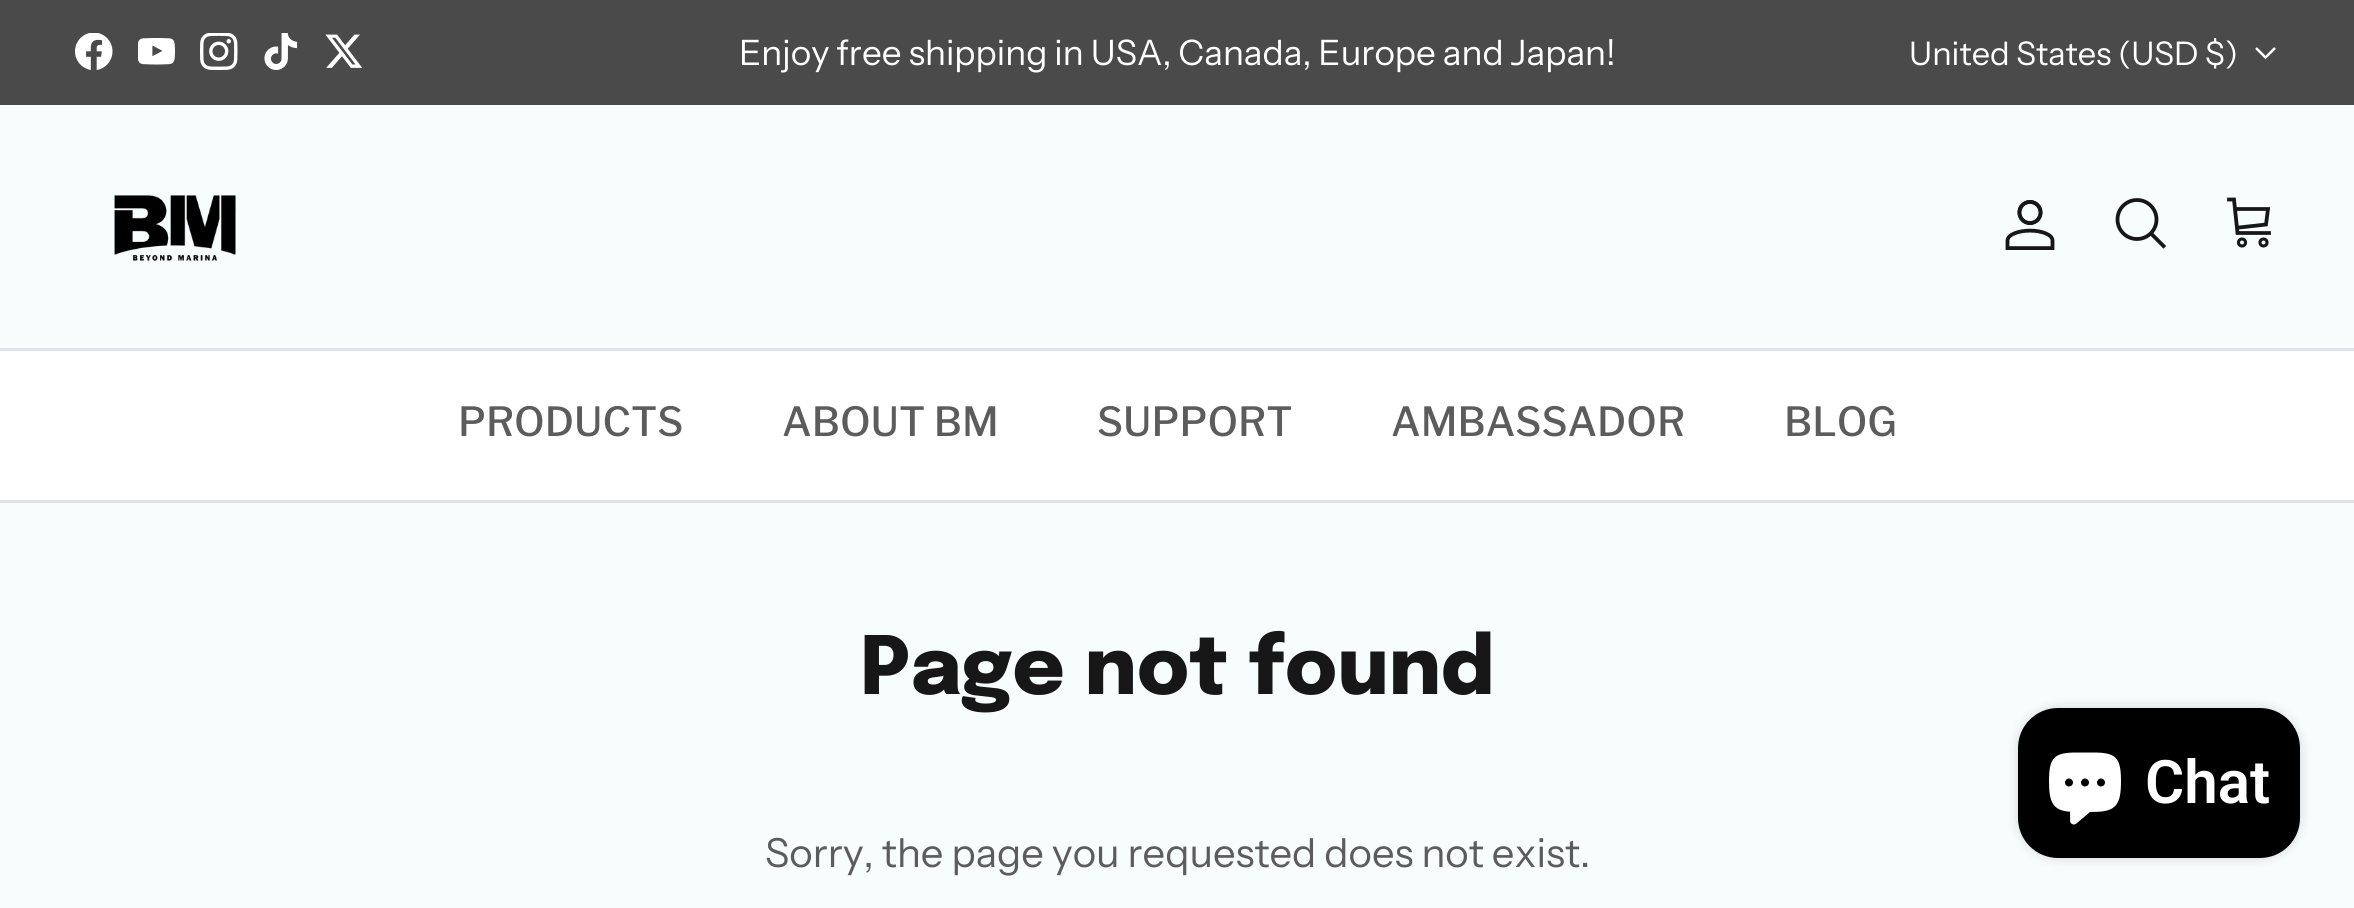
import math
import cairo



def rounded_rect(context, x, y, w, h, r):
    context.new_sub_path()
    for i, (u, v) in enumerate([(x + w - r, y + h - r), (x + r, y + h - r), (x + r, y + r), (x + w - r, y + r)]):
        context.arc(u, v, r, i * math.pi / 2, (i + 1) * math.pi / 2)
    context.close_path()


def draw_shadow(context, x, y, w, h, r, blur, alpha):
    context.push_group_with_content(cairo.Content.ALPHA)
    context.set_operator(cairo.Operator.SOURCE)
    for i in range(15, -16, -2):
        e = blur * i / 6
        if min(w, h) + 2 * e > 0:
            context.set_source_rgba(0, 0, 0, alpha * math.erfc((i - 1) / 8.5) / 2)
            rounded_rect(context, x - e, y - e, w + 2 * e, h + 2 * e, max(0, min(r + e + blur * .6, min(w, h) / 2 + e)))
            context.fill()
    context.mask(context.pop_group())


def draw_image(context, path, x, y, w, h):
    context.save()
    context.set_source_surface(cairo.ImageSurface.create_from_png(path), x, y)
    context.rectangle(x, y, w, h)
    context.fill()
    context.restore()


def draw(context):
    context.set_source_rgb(247 / 255, 252 / 255, 252 / 255)
    context.paint()
    context.set_source_rgb(74 / 255, 74 / 255, 74 / 255)
    context.rectangle(0, 0, 2354, 105)
    context.fill()
    draw_image(context, "images/1.png", 75, 33, 38, 37)
    draw_image(context, "images/2.png", 138, 38, 37, 27)
    draw_image(context, "images/3.png", 200, 33, 38, 37)
    draw_image(context, "images/4.png", 264, 33, 34, 37)
    draw_image(context, "images/5.png", 325, 34, 38, 34)
    context.new_path()
    context.move_to(2275, 48)
    context.line_to(2265.5, 57.5)
    context.line_to(2256, 48)
    context.set_source_rgb(1, 1, 1)
    context.set_line_width(2.5)
    context.stroke()
    context.set_source_rgb(223 / 255, 227 / 255, 232 / 255)
    context.rectangle(0, 348, 2354, 3)
    context.fill()
    draw_image(context, "images/6.png", 114, 195, 122, 66)
    draw_image(context, "images/7.png", 2005, 200, 50, 50)
    context.arc(2137, 219.5, 19.5, 0, 2 * math.pi)
    context.set_source_rgb(23 / 255, 23 / 255, 23 / 255)
    context.set_line_width(3.8)
    context.stroke()
    context.new_path()
    context.move_to(2152.5, 235)
    context.line_to(2163.5, 246)
    context.set_line_cap(cairo.LineCap.SQUARE)
    context.stroke()
    context.new_path()
    context.move_to(2229, 199.5)
    context.line_to(2234, 199.5)
    context.line_to(2237.5, 233)
    context.line_to(2269, 233)
    context.move_to(2235.5, 209)
    context.line_to(2268, 209)
    context.line_to(2266, 224.5)
    context.line_to(2239, 227.5)
    context.stroke()
    context.arc(2242, 242.5, 3.5, 0, 2 * math.pi)
    context.set_line_width(3.1)
    context.set_line_cap(cairo.LineCap.BUTT)
    context.stroke()
    context.arc(2263.5, 242.5, 3.5, 0, 2 * math.pi)
    context.stroke()
    context.set_source_rgb(223 / 255, 227 / 255, 232 / 255)
    context.rectangle(0, 500, 2354, 3)
    context.fill()
    context.set_source_rgb(1, 1, 1)
    context.rectangle(0, 351, 2354, 149)
    context.fill()
    context.set_source_rgb(0, 0, 0)
    draw_shadow(context, 2018, 708, 282, 150, 40, 6, 0.15)
    context.set_source_rgb(0, 0, 0)
    rounded_rect(context, 2018, 708, 282, 150, 40)
    context.fill()
    draw_image(context, "images/8.png", 2049, 752, 72, 73)
    context.select_font_face("Instrument Sans")
    context.set_font_size(35)
    context.set_source_rgb(1, 1, 1)
    context.move_to(739, 65)
    context.show_text("Enjoy free shipping in USA, Canada, Europe and Japan!")
    context.set_font_size(32.5)
    context.move_to(1909, 65)
    context.show_text("United States (USD $)")
    context.select_font_face("Libre Franklin Medium")
    context.set_font_size(40)
    context.set_source_rgb(92 / 255, 92 / 255, 92 / 255)
    context.move_to(458, 436)
    context.show_text("PRODUCTS")
    context.move_to(782, 436)
    context.show_text("ABOUT BM")
    context.move_to(1097, 436)
    context.show_text("SUPPORT")
    context.move_to(1391, 436)
    context.show_text("AMBASSADOR")
    context.move_to(1784, 436)
    context.show_text("BLOG")
    context.select_font_face("Epilogue ExtraBold")
    context.set_font_size(80)
    context.set_source_rgb(23 / 255, 23 / 255, 23 / 255)
    context.move_to(860, 694)
    context.show_text("Page not found")
    context.select_font_face("Instrument Sans")
    context.set_font_size(40)
    context.set_source_rgb(92 / 255, 92 / 255, 92 / 255)
    context.move_to(765, 867)
    context.show_text("Sorry, the page you requested does not exist.")
    context.select_font_face("Roboto SemiBold")
    context.set_font_size(60)
    context.set_source_rgb(1, 1, 1)
    context.move_to(2145, 803)
    context.show_text("Chat")


surface = cairo.ImageSurface(cairo.Format.RGB24, 2354, 908)
context = cairo.Context(surface)
options = cairo.FontOptions()
options.set_hint_metrics(cairo.HintMetrics.OFF)
options.set_hint_style(cairo.HintStyle.NONE)
context.set_font_options(options)
context.set_miter_limit(4)
draw(context)
surface.write_to_png("out.png")
